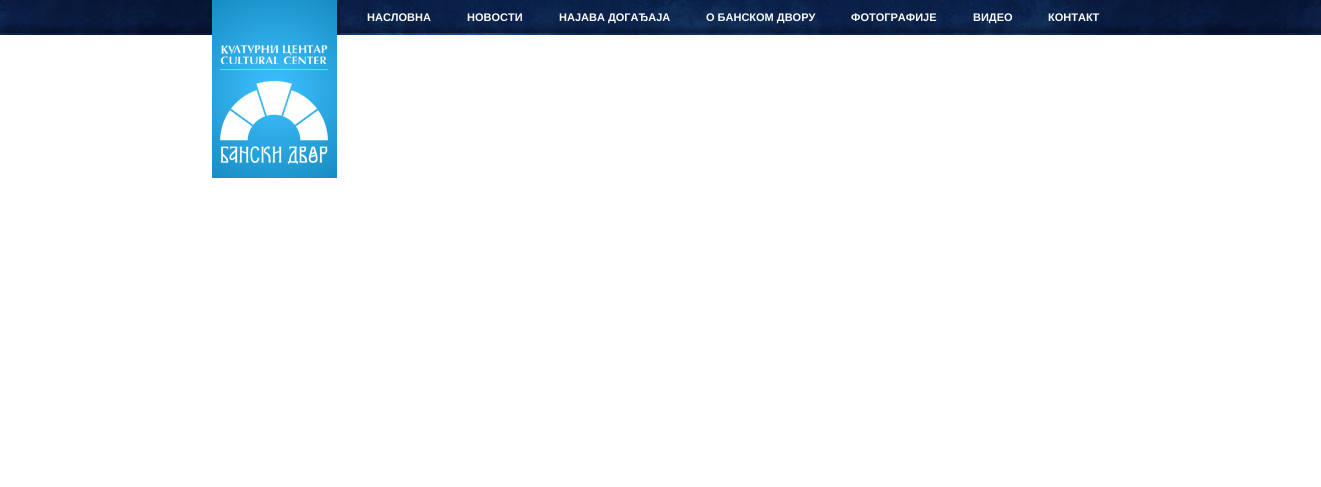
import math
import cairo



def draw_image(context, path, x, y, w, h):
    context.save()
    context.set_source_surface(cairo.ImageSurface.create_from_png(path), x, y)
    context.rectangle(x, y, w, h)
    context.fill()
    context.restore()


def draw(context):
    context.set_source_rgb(1, 1, 1)
    context.paint()
    draw_image(context, "images/1.png", 0, 0, 1321, 39)
    draw_image(context, "images/2.png", 212, 0, 125, 178)
    context.select_font_face("Liberation Sans", cairo.FontSlant.NORMAL, cairo.FontWeight.BOLD)
    context.set_font_size(11)
    context.set_source_rgb(250 / 255, 250 / 255, 250 / 255)
    context.move_to(367, 21)
    context.show_text("НАСЛОВНА")
    context.move_to(467, 21)
    context.show_text("НОВОСТИ")
    context.move_to(559, 21)
    context.show_text("НАЈАВА ДОГАЂАЈА")
    context.move_to(706, 21)
    context.show_text("О БАНСКОМ ДВОРУ")
    context.move_to(851, 21)
    context.show_text("ФОТОГРАФИЈЕ")
    context.move_to(973, 21)
    context.show_text("ВИДЕО")
    context.move_to(1048, 21)
    context.show_text("КОНТАКТ")


surface = cairo.ImageSurface(cairo.Format.RGB24, 1321, 487)
context = cairo.Context(surface)
options = cairo.FontOptions()
options.set_hint_metrics(cairo.HintMetrics.OFF)
options.set_hint_style(cairo.HintStyle.NONE)
context.set_font_options(options)
context.set_miter_limit(4)
draw(context)
surface.write_to_png("out.png")
